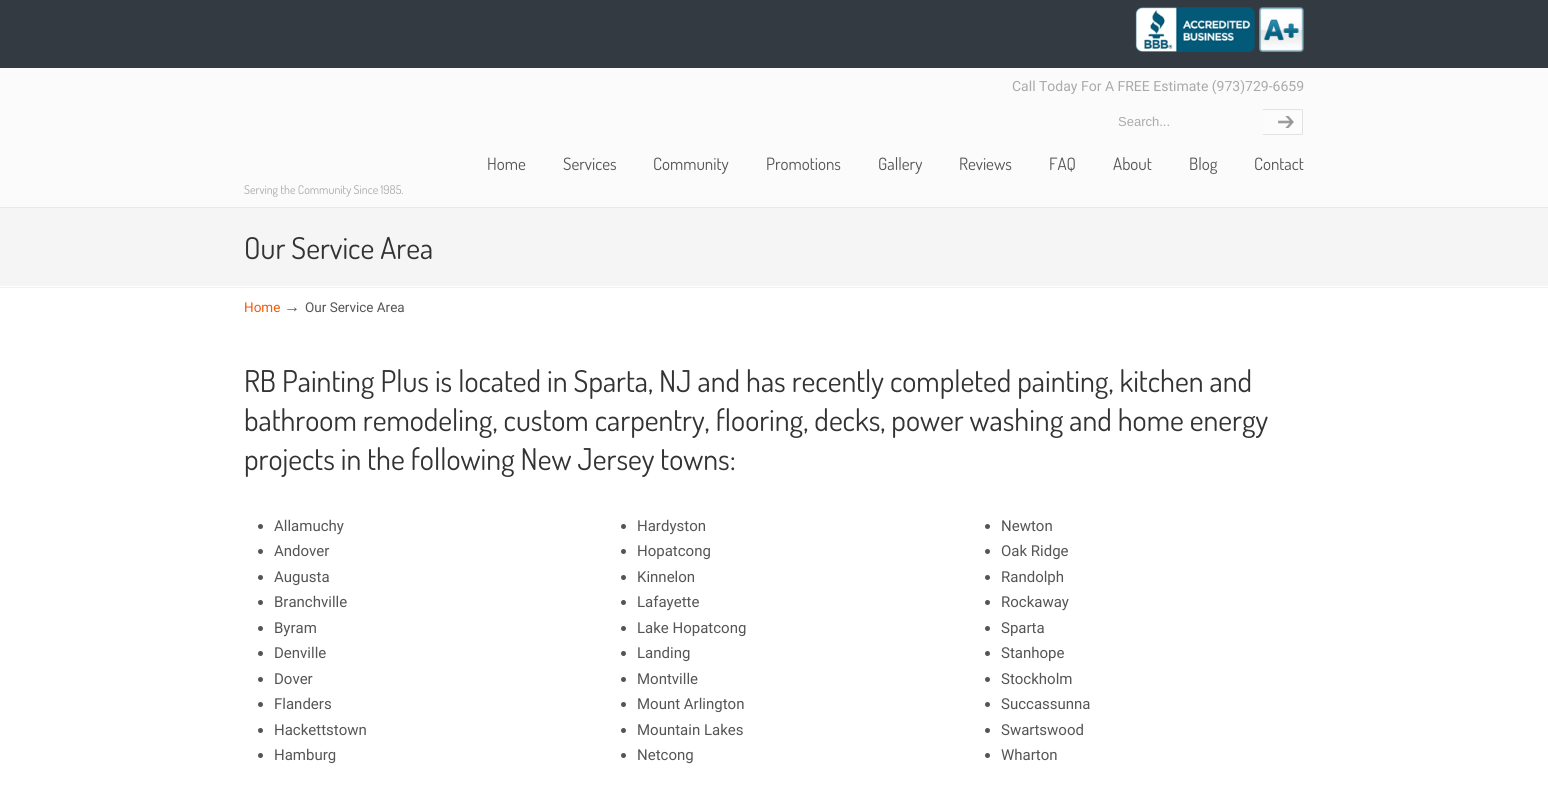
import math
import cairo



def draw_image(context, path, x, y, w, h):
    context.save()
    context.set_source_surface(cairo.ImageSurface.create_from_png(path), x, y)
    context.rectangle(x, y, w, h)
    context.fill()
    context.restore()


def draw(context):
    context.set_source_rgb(251 / 255, 251 / 255, 251 / 255)
    context.paint()
    context.set_source_rgb(52 / 255, 58 / 255, 65 / 255)
    context.rectangle(0, 0, 1548, 68)
    context.fill()
    draw_image(context, "images/1.png", 1135, 7, 120, 45)
    draw_image(context, "images/2.png", 1259, 7, 45, 45)
    draw_image(context, "images/3.png", 1263, 109, 40, 26)
    context.set_source_rgb(233 / 255, 233 / 255, 233 / 255)
    context.rectangle(0, 207, 1548, 1)
    context.fill()
    context.set_source_rgb(245 / 255, 245 / 255, 245 / 255)
    context.rectangle(0, 208, 1548, 78)
    context.fill()
    context.set_source_rgb(1, 1, 1)
    context.rectangle(0, 286, 1548, 500)
    context.fill()
    draw_image(context, "images/4.png", 0, 287, 1548, 1)
    context.set_source_rgb(85 / 255, 85 / 255, 85 / 255)
    context.arc(260.5, 526.5, 2.5, 0, 2 * math.pi)
    context.fill()
    context.arc(260.5, 551.5, 2.5, 0, 2 * math.pi)
    context.fill()
    context.arc(260.5, 577.5, 2.5, 0, 2 * math.pi)
    context.fill()
    context.arc(260.5, 602.5, 2.5, 0, 2 * math.pi)
    context.fill()
    context.arc(260.5, 628.5, 2.5, 0, 2 * math.pi)
    context.fill()
    context.arc(260.5, 653.5, 2.5, 0, 2 * math.pi)
    context.fill()
    context.arc(260.5, 679.5, 2.5, 0, 2 * math.pi)
    context.fill()
    context.arc(260.5, 704.5, 2.5, 0, 2 * math.pi)
    context.fill()
    context.arc(260.5, 730.5, 2.5, 0, 2 * math.pi)
    context.fill()
    context.arc(260.5, 755.5, 2.5, 0, 2 * math.pi)
    context.fill()
    context.arc(623.5, 526.5, 2.5, 0, 2 * math.pi)
    context.fill()
    context.arc(623.5, 551.5, 2.5, 0, 2 * math.pi)
    context.fill()
    context.arc(623.5, 577.5, 2.5, 0, 2 * math.pi)
    context.fill()
    context.arc(623.5, 602.5, 2.5, 0, 2 * math.pi)
    context.fill()
    context.arc(623.5, 628.5, 2.5, 0, 2 * math.pi)
    context.fill()
    context.arc(623.5, 653.5, 2.5, 0, 2 * math.pi)
    context.fill()
    context.arc(623.5, 679.5, 2.5, 0, 2 * math.pi)
    context.fill()
    context.arc(623.5, 704.5, 2.5, 0, 2 * math.pi)
    context.fill()
    context.arc(623.5, 730.5, 2.5, 0, 2 * math.pi)
    context.fill()
    context.arc(623.5, 755.5, 2.5, 0, 2 * math.pi)
    context.fill()
    context.arc(987.5, 526.5, 2.5, 0, 2 * math.pi)
    context.fill()
    context.arc(987.5, 551.5, 2.5, 0, 2 * math.pi)
    context.fill()
    context.arc(987.5, 577.5, 2.5, 0, 2 * math.pi)
    context.fill()
    context.arc(987.5, 602.5, 2.5, 0, 2 * math.pi)
    context.fill()
    context.arc(987.5, 628.5, 2.5, 0, 2 * math.pi)
    context.fill()
    context.arc(987.5, 653.5, 2.5, 0, 2 * math.pi)
    context.fill()
    context.arc(987.5, 679.5, 2.5, 0, 2 * math.pi)
    context.fill()
    context.arc(987.5, 704.5, 2.5, 0, 2 * math.pi)
    context.fill()
    context.arc(987.5, 730.5, 2.5, 0, 2 * math.pi)
    context.fill()
    context.arc(987.5, 755.5, 2.5, 0, 2 * math.pi)
    context.fill()
    context.select_font_face("Roboto")
    context.set_font_size(14)
    context.set_source_rgb(170 / 255, 170 / 255, 170 / 255)
    context.move_to(1012, 91)
    context.show_text("Call Today For A FREE Estimate (973)729-6659")
    context.select_font_face("Liberation Sans")
    context.set_font_size(13)
    context.move_to(1118, 126)
    context.show_text("Search...")
    context.select_font_face("Dosis")
    context.set_font_size(12)
    context.move_to(244, 194)
    context.show_text("Serving the Community Since 1985.")
    context.set_font_size(17)
    context.set_source_rgb(85 / 255, 85 / 255, 85 / 255)
    context.move_to(487, 170)
    context.show_text("Home")
    context.move_to(563, 170)
    context.show_text("Services")
    context.move_to(653, 170)
    context.show_text("Community")
    context.move_to(766, 170)
    context.show_text("Promotions")
    context.move_to(878, 170)
    context.show_text("Gallery")
    context.move_to(959, 170)
    context.show_text("Reviews")
    context.move_to(1049, 170)
    context.show_text("FAQ")
    context.move_to(1113, 170)
    context.show_text("About")
    context.move_to(1189, 170)
    context.show_text("Blog")
    context.move_to(1254, 170)
    context.show_text("Contact")
    context.set_font_size(30)
    context.set_source_rgb(51 / 255, 51 / 255, 51 / 255)
    context.move_to(244, 259)
    context.show_text("Our Service Area")
    context.select_font_face("Roboto")
    context.set_font_size(13.5)
    context.set_source_rgb(249 / 255, 87 / 255, 0)
    context.move_to(244, 312)
    context.show_text("Home")
    context.select_font_face("Liberation Serif")
    context.set_font_size(16)
    context.set_source_rgb(85 / 255, 85 / 255, 85 / 255)
    context.move_to(284, 312)
    context.show_text("→")
    context.select_font_face("Roboto")
    context.set_font_size(13.5)
    context.move_to(305, 312)
    context.show_text("Our Service Area")
    context.select_font_face("Dosis")
    context.set_font_size(30)
    context.set_source_rgb(51 / 255, 51 / 255, 51 / 255)
    context.move_to(244, 392)
    context.show_text("RB Painting Plus is located in Sparta, NJ and has recently completed painting, kitchen and")
    context.move_to(244, 431)
    context.show_text("bathroom remodeling, custom carpentry, flooring, decks, power washing and home energy")
    context.move_to(244, 470)
    context.show_text("projects in the following New Jersey towns:")
    context.select_font_face("Roboto")
    context.set_font_size(15)
    context.set_source_rgb(85 / 255, 85 / 255, 85 / 255)
    context.move_to(274, 531)
    context.show_text("Allamuchy")
    context.move_to(274, 556)
    context.show_text("Andover")
    context.move_to(274, 582)
    context.show_text("Augusta")
    context.move_to(274, 607)
    context.show_text("Branchville")
    context.move_to(274, 633)
    context.show_text("Byram")
    context.move_to(274, 658)
    context.show_text("Denville")
    context.move_to(274, 684)
    context.show_text("Dover")
    context.move_to(274, 709)
    context.show_text("Flanders")
    context.move_to(274, 735)
    context.show_text("Hackettstown")
    context.move_to(274, 760)
    context.show_text("Hamburg")
    context.move_to(637, 531)
    context.show_text("Hardyston")
    context.move_to(637, 556)
    context.show_text("Hopatcong")
    context.move_to(637, 582)
    context.show_text("Kinnelon")
    context.move_to(637, 607)
    context.show_text("Lafayette")
    context.move_to(637, 633)
    context.show_text("Lake Hopatcong")
    context.move_to(637, 658)
    context.show_text("Landing")
    context.move_to(637, 684)
    context.show_text("Montville")
    context.move_to(637, 709)
    context.show_text("Mount Arlington")
    context.move_to(637, 735)
    context.show_text("Mountain Lakes")
    context.move_to(637, 760)
    context.show_text("Netcong")
    context.move_to(1001, 531)
    context.show_text("Newton")
    context.move_to(1001, 556)
    context.show_text("Oak Ridge")
    context.move_to(1001, 582)
    context.show_text("Randolph")
    context.move_to(1001, 607)
    context.show_text("Rockaway")
    context.move_to(1001, 633)
    context.show_text("Sparta")
    context.move_to(1001, 658)
    context.show_text("Stanhope")
    context.move_to(1001, 684)
    context.show_text("Stockholm")
    context.move_to(1001, 709)
    context.show_text("Succassunna")
    context.move_to(1001, 735)
    context.show_text("Swartswood")
    context.move_to(1001, 760)
    context.show_text("Wharton")


surface = cairo.ImageSurface(cairo.Format.RGB24, 1548, 786)
context = cairo.Context(surface)
options = cairo.FontOptions()
options.set_hint_metrics(cairo.HintMetrics.OFF)
options.set_hint_style(cairo.HintStyle.NONE)
context.set_font_options(options)
context.set_miter_limit(4)
draw(context)
surface.write_to_png("out.png")
